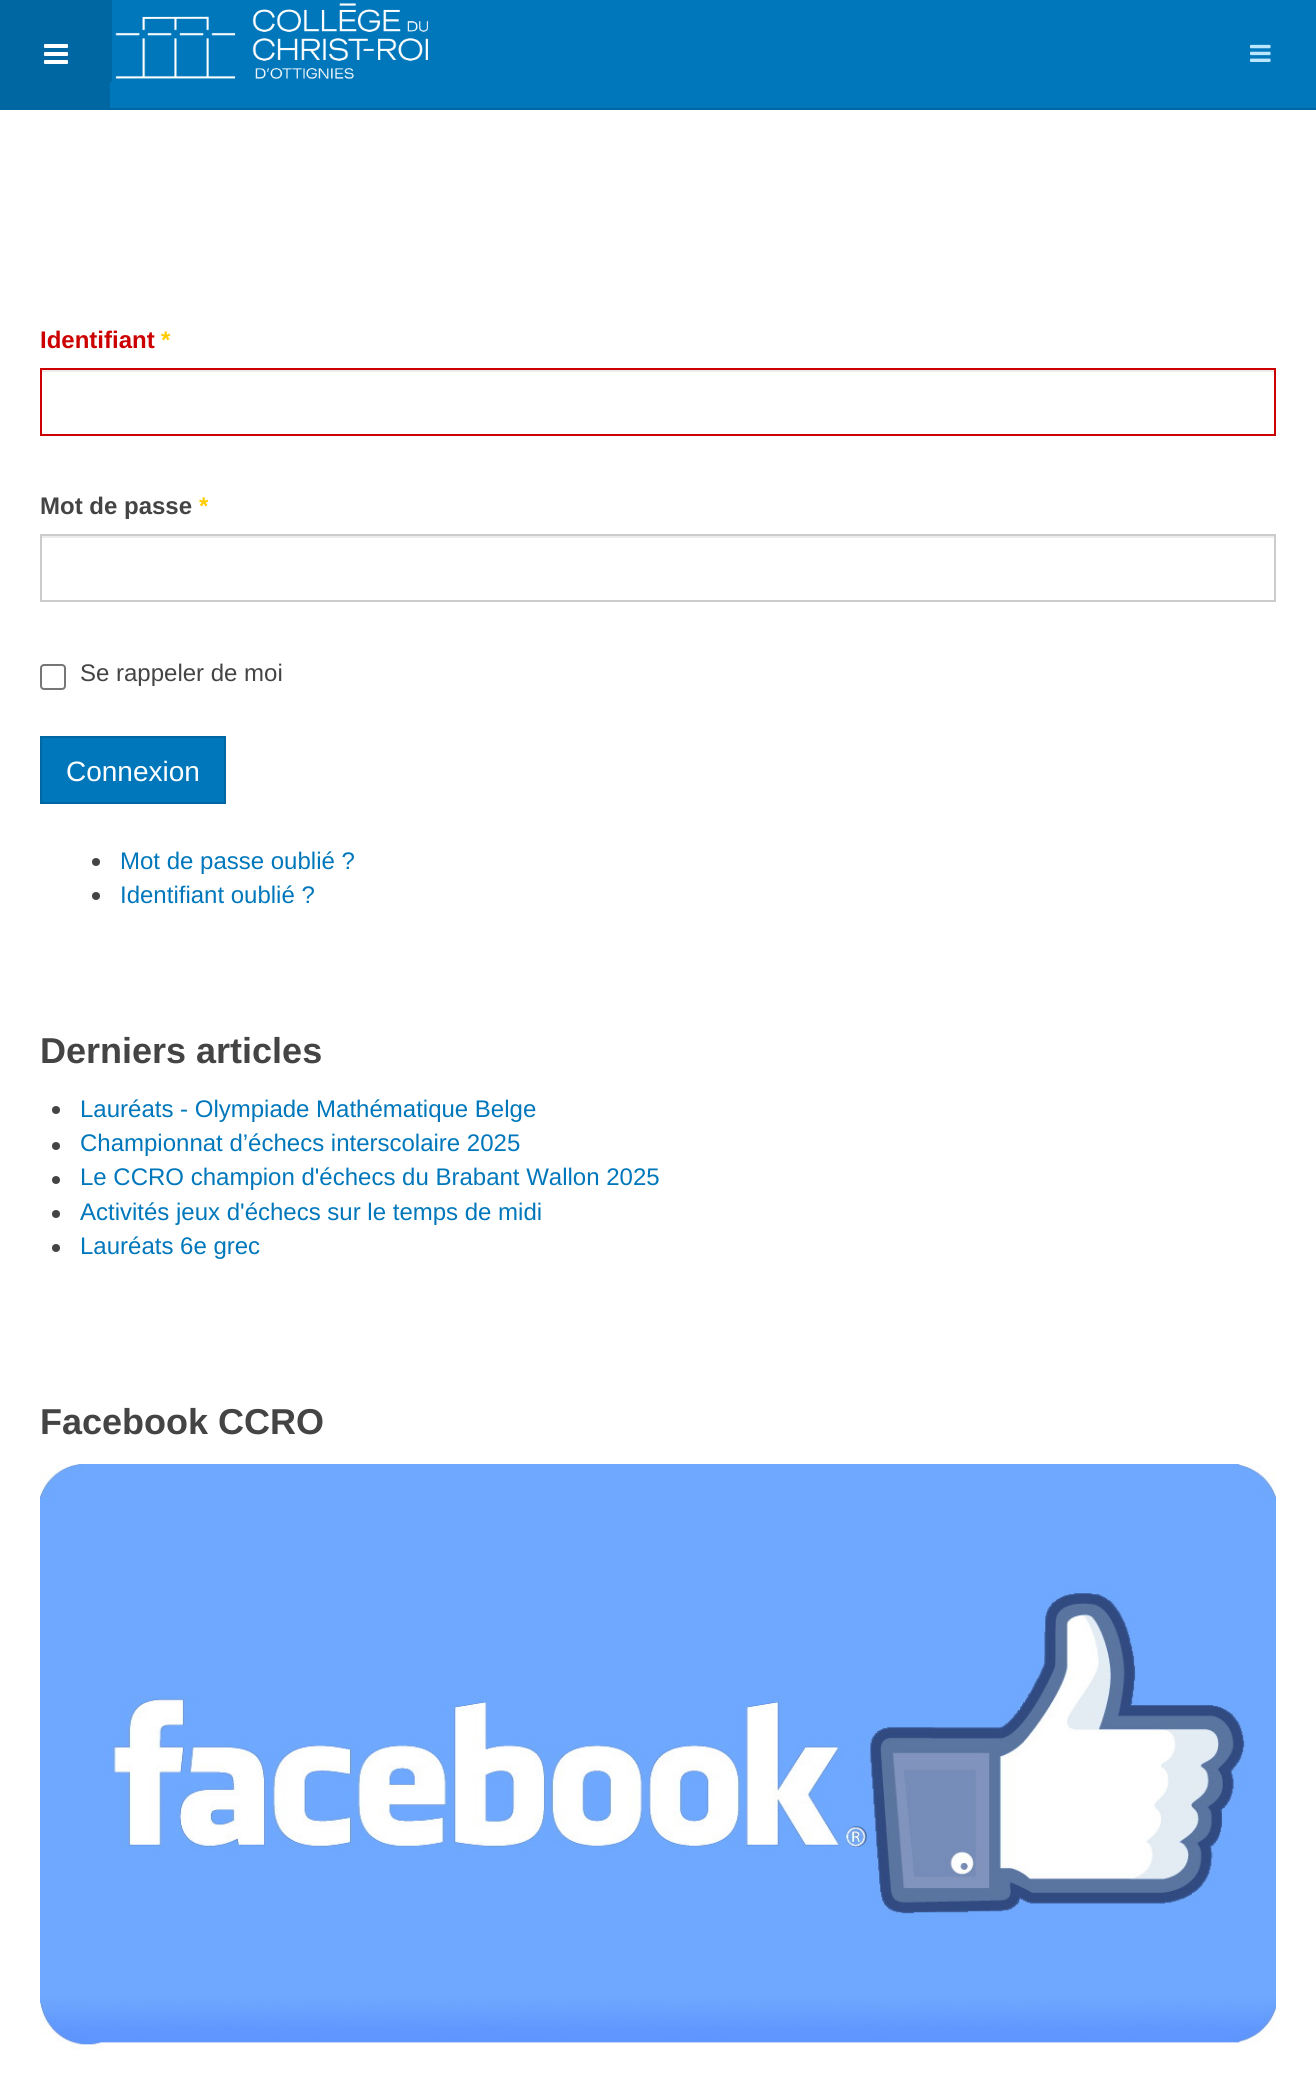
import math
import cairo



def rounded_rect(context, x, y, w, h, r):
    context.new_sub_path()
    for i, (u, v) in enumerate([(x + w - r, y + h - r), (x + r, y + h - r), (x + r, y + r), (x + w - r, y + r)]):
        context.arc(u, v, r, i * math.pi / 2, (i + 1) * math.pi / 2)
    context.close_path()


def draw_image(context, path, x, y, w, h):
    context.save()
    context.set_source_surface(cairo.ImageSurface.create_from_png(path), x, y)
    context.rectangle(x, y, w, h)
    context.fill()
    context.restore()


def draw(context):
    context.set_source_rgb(1, 1, 1)
    context.paint()
    context.set_source_rgb(0, 119 / 255, 187 / 255)
    context.rectangle(110, 0, 1206, 108)
    context.fill()
    context.set_source_rgb(0, 103 / 255, 162 / 255)
    context.rectangle(110, 108, 1206, 2)
    context.fill()
    context.rectangle(0, 0, 110, 110)
    context.fill()
    draw_image(context, "images/1.png", 44, 44, 24, 20)
    context.rectangle(110, 0, 2, 82)
    context.fill()
    draw_image(context, "images/2.png", 115, 3, 313, 77)
    draw_image(context, "images/3.png", 1250, 44, 21, 18)
    context.set_source_rgb(236 / 255, 236 / 255, 236 / 255)
    context.rectangle(42, 370, 1232, 2)
    context.fill()
    context.rectangle(41, 369, 1234, 66)
    context.set_source_rgb(204 / 255, 0, 0)
    context.stroke()
    context.set_source_rgb(236 / 255, 236 / 255, 236 / 255)
    context.rectangle(42, 536, 1232, 2)
    context.fill()
    context.rectangle(41, 535, 1234, 66)
    context.set_source_rgb(204 / 255, 204 / 255, 204 / 255)
    context.stroke()
    rounded_rect(context, 41, 665, 24, 24, 3)
    context.set_source_rgb(118 / 255, 118 / 255, 118 / 255)
    context.stroke()
    context.set_source_rgb(0, 119 / 255, 187 / 255)
    context.rectangle(41, 737, 184, 66)
    context.fill_preserve()
    context.set_source_rgb(0, 103 / 255, 162 / 255)
    context.stroke()
    context.set_source_rgb(68 / 255, 68 / 255, 68 / 255)
    context.arc(96, 862, 4, 0, 2 * math.pi)
    context.fill()
    context.arc(96, 896, 4, 0, 2 * math.pi)
    context.fill()
    context.arc(56, 1110, 4, 0, 2 * math.pi)
    context.fill()
    context.arc(56, 1146, 4, 0, 2 * math.pi)
    context.fill()
    context.arc(56, 1180, 4, 0, 2 * math.pi)
    context.fill()
    context.arc(56, 1214, 4, 0, 2 * math.pi)
    context.fill()
    context.arc(56, 1248, 4, 0, 2 * math.pi)
    context.fill()
    draw_image(context, "images/4.png", 40, 1464, 1236, 586)
    context.select_font_face("Liberation Sans", cairo.FontSlant.NORMAL, cairo.FontWeight.BOLD)
    context.set_font_size(24)
    context.set_source_rgb(204 / 255, 0, 0)
    context.move_to(40, 348)
    context.show_text("Identifiant")
    context.set_source_rgb(1, 204 / 255, 0)
    context.move_to(161, 348)
    context.show_text("*")
    context.set_source_rgb(68 / 255, 68 / 255, 68 / 255)
    context.move_to(40, 514)
    context.show_text("Mot de passe")
    context.set_source_rgb(1, 204 / 255, 0)
    context.move_to(199, 514)
    context.show_text("*")
    context.select_font_face("Liberation Sans")
    context.set_source_rgb(68 / 255, 68 / 255, 68 / 255)
    context.move_to(80, 681)
    context.show_text("Se rappeler de moi")
    context.set_font_size(28)
    context.set_source_rgb(1, 1, 1)
    context.move_to(66, 781)
    context.show_text("Connexion")
    context.set_font_size(24)
    context.set_source_rgb(0, 119 / 255, 187 / 255)
    context.move_to(120, 869)
    context.show_text("Mot de passe oublié ?")
    context.move_to(120, 903)
    context.show_text("Identifiant oublié ?")
    context.select_font_face("Liberation Sans", cairo.FontSlant.NORMAL, cairo.FontWeight.BOLD)
    context.set_font_size(36)
    context.set_source_rgb(68 / 255, 68 / 255, 68 / 255)
    context.move_to(40, 1063)
    context.show_text("Derniers articles")
    context.select_font_face("Liberation Sans")
    context.set_font_size(24)
    context.set_source_rgb(0, 119 / 255, 187 / 255)
    context.move_to(80, 1117)
    context.show_text("Lauréats - Olympiade Mathématique Belge")
    context.move_to(80, 1151)
    context.show_text("Championnat d’échecs interscolaire 2025")
    context.move_to(80, 1185)
    context.show_text("Le CCRO champion d'échecs du Brabant Wallon 2025")
    context.move_to(80, 1220)
    context.show_text("Activités jeux d'échecs sur le temps de midi")
    context.move_to(80, 1254)
    context.show_text("Lauréats 6e grec")
    context.select_font_face("Liberation Sans", cairo.FontSlant.NORMAL, cairo.FontWeight.BOLD)
    context.set_font_size(36)
    context.set_source_rgb(68 / 255, 68 / 255, 68 / 255)
    context.move_to(40, 1434)
    context.show_text("Facebook CCRO")


surface = cairo.ImageSurface(cairo.Format.RGB24, 1316, 2097)
context = cairo.Context(surface)
options = cairo.FontOptions()
options.set_hint_metrics(cairo.HintMetrics.OFF)
options.set_hint_style(cairo.HintStyle.NONE)
context.set_font_options(options)
context.set_miter_limit(4)
draw(context)
surface.write_to_png("out.png")
